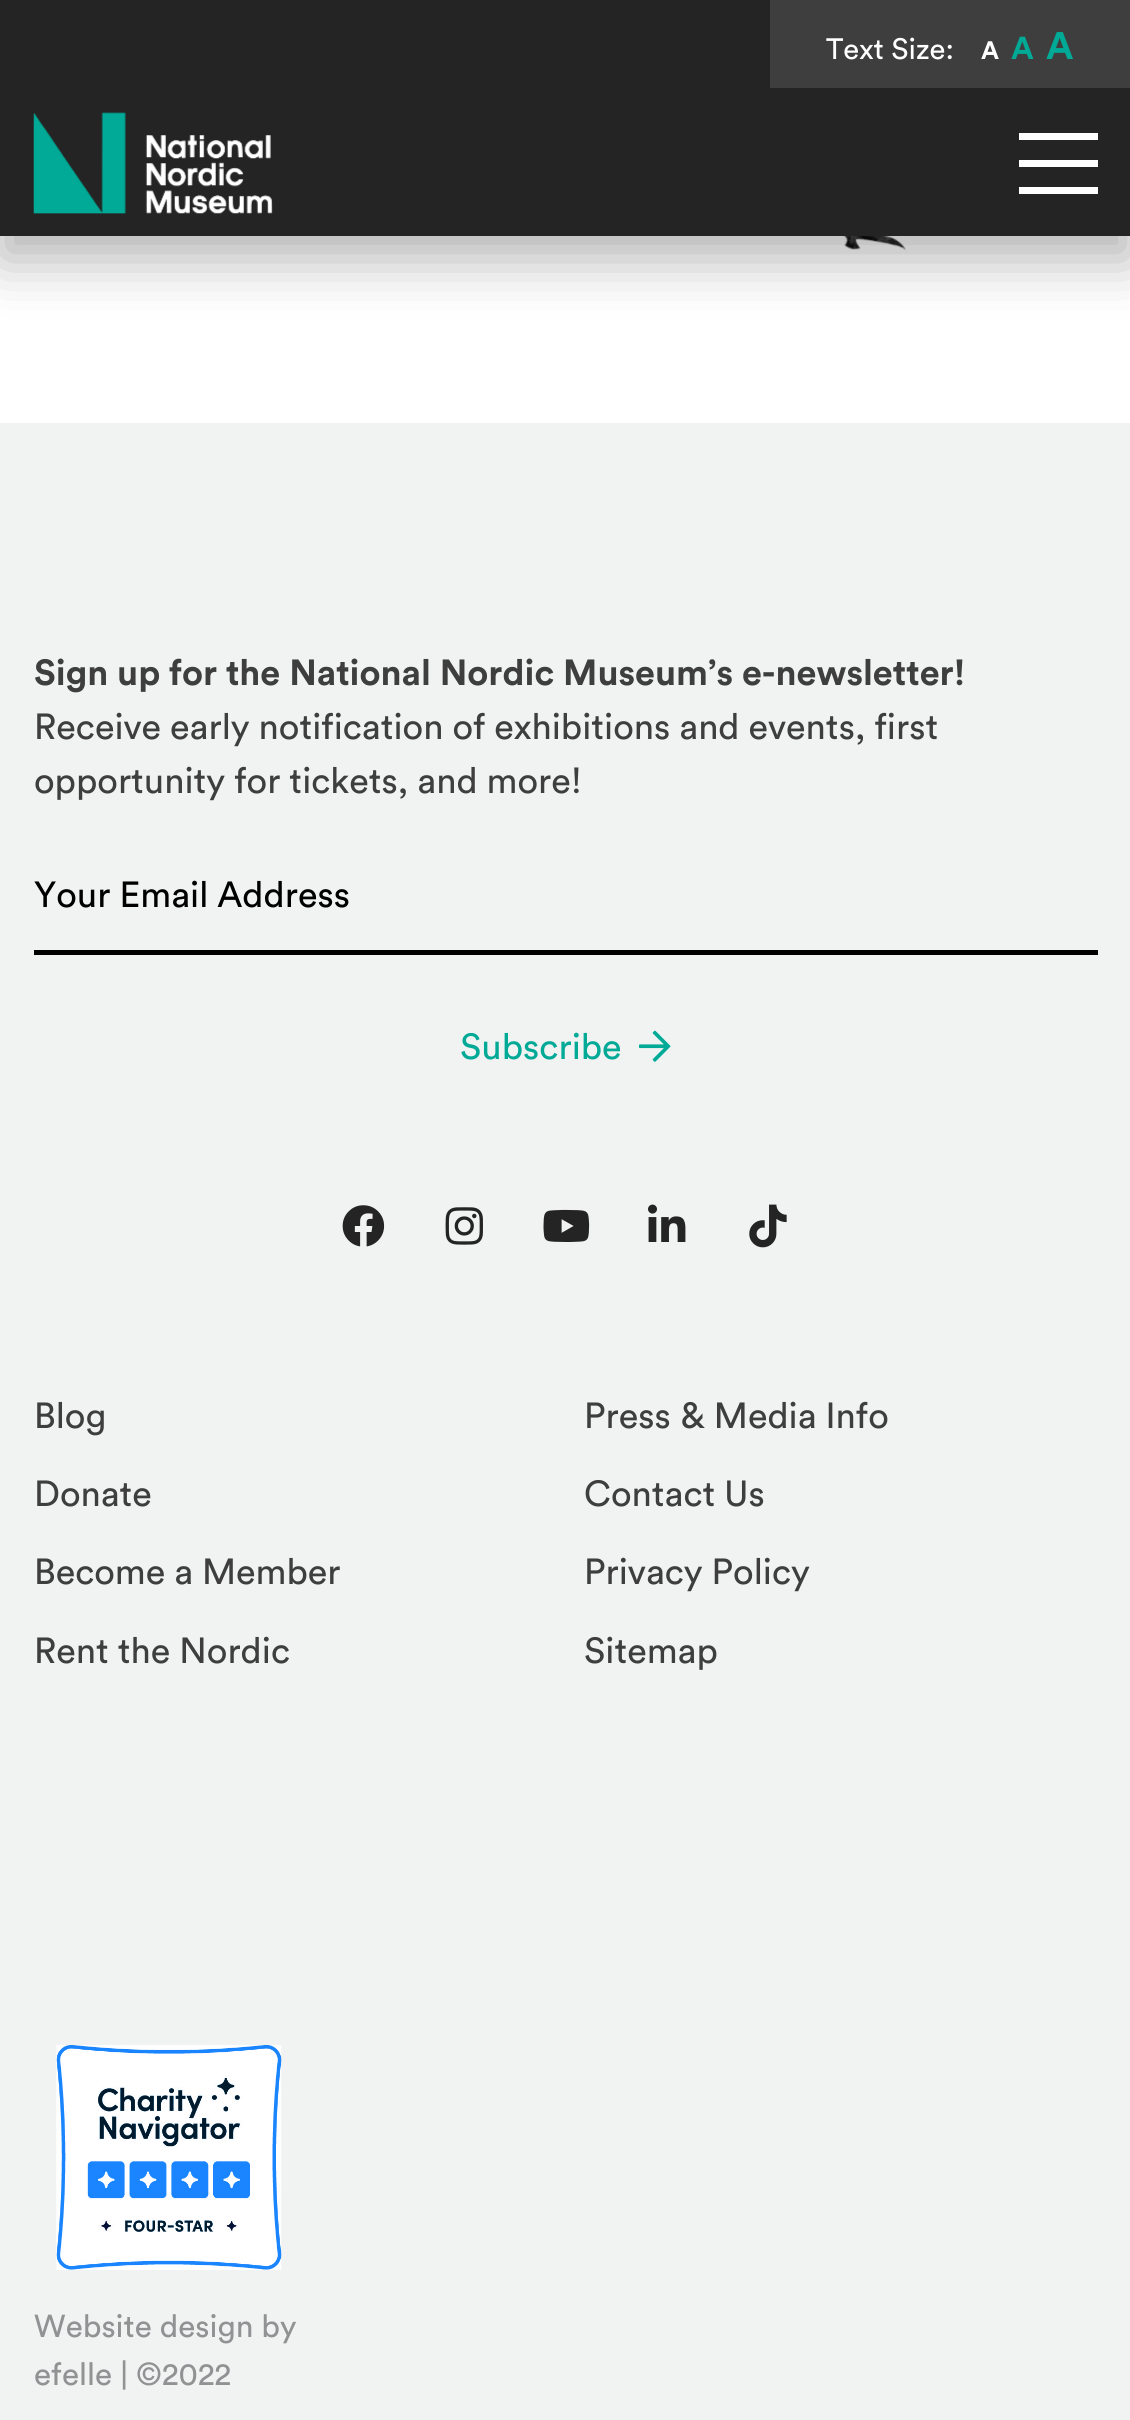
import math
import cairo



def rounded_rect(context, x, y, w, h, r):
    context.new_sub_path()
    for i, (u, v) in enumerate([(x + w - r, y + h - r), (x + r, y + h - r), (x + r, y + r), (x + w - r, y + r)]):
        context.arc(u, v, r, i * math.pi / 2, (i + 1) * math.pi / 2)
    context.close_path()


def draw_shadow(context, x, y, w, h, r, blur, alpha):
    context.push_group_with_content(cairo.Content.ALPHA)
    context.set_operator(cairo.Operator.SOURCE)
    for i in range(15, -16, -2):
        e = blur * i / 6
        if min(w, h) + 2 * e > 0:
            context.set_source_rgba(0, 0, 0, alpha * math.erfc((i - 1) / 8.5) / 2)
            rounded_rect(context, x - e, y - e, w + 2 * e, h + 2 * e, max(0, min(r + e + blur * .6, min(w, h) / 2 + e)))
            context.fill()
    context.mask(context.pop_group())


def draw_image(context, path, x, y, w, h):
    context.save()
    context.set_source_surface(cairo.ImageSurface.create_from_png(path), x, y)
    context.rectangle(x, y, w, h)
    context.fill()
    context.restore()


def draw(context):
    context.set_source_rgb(1, 1, 1)
    context.paint()
    draw_image(context, "images/2.png", 843, 236, 63, 15)
    context.set_source_rgb(0, 0, 0)
    draw_shadow(context, 0, 23, 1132, 236, 0, 28, 0.3)
    context.set_source_rgb(36 / 255, 36 / 255, 36 / 255)
    context.rectangle(0, 0, 1130, 236)
    context.fill()
    context.set_source_rgb(62 / 255, 62 / 255, 62 / 255)
    context.rectangle(770, 0, 360, 88)
    context.fill()
    draw_image(context, "images/1.png", 33, 112, 240, 102)
    context.set_source_rgb(1, 1, 1)
    context.rectangle(1019, 160, 79, 7)
    context.fill()
    context.rectangle(1019, 133, 79, 7)
    context.fill()
    context.rectangle(1019, 187, 79, 7)
    context.fill()
    context.set_source_rgb(241 / 255, 242 / 255, 242 / 255)
    context.rectangle(0, 423, 1130, 1997)
    context.fill()
    context.set_source_rgb(0, 0, 0)
    context.rectangle(34, 950, 1064, 5)
    context.fill()
    draw_image(context, "images/3.png", 639, 1030, 32, 32)
    draw_image(context, "images/4.png", 342, 1205, 43, 42)
    draw_image(context, "images/5.png", 445, 1207, 38, 38)
    draw_image(context, "images/6.png", 543, 1209, 47, 33)
    draw_image(context, "images/7.png", 648, 1204, 38, 38)
    draw_image(context, "images/8.png", 749, 1204, 38, 44)
    draw_image(context, "images/9.png", 56, 2045, 226, 225)
    context.select_font_face("Circular")
    context.set_font_size(29.25)
    context.set_source_rgb(1, 1, 1)
    context.move_to(826, 59)
    context.show_text("Text Size:")
    context.select_font_face("Circular", cairo.FontSlant.NORMAL, cairo.FontWeight.BOLD)
    context.set_font_size(25)
    context.move_to(981, 59)
    context.show_text("A")
    context.set_font_size(31.5)
    context.set_source_rgb(0, 170 / 255, 150 / 255)
    context.move_to(1011, 59)
    context.show_text("A")
    context.set_font_size(38)
    context.move_to(1046, 59)
    context.show_text("A")
    context.set_font_size(36)
    context.set_source_rgb(62 / 255, 62 / 255, 62 / 255)
    context.move_to(34, 685)
    context.show_text("Sign up for the National Nordic Museum’s e-newsletter!")
    context.select_font_face("Circular")
    context.move_to(34, 739)
    context.show_text("Receive early notification of exhibitions and events, first")
    context.move_to(34, 793)
    context.show_text("opportunity for tickets, and more!")
    context.set_source_rgb(0, 0, 0)
    context.move_to(34, 907)
    context.show_text("Your Email Address")
    context.set_source_rgb(0, 170 / 255, 150 / 255)
    context.move_to(460, 1059)
    context.show_text("Subscribe")
    context.set_source_rgb(62 / 255, 62 / 255, 62 / 255)
    context.move_to(34, 1428)
    context.show_text("Blog")
    context.move_to(584, 1428)
    context.show_text("Press & Media Info")
    context.move_to(34, 1506)
    context.show_text("Donate")
    context.move_to(584, 1506)
    context.show_text("Contact Us")
    context.move_to(34, 1584)
    context.show_text("Become a Member")
    context.move_to(584, 1584)
    context.show_text("Privacy Policy")
    context.move_to(34, 1663)
    context.show_text("Rent the Nordic")
    context.move_to(584, 1663)
    context.show_text("Sitemap")
    context.set_font_size(31.5)
    context.set_source_rgb(144 / 255, 146 / 255, 147 / 255)
    context.move_to(34, 2337)
    context.show_text("Website design by")
    context.move_to(34, 2385)
    context.show_text("efelle | ©2022")


surface = cairo.ImageSurface(cairo.Format.RGB24, 1130, 2420)
context = cairo.Context(surface)
options = cairo.FontOptions()
options.set_hint_metrics(cairo.HintMetrics.OFF)
options.set_hint_style(cairo.HintStyle.NONE)
context.set_font_options(options)
context.set_miter_limit(4)
draw(context)
surface.write_to_png("out.png")
